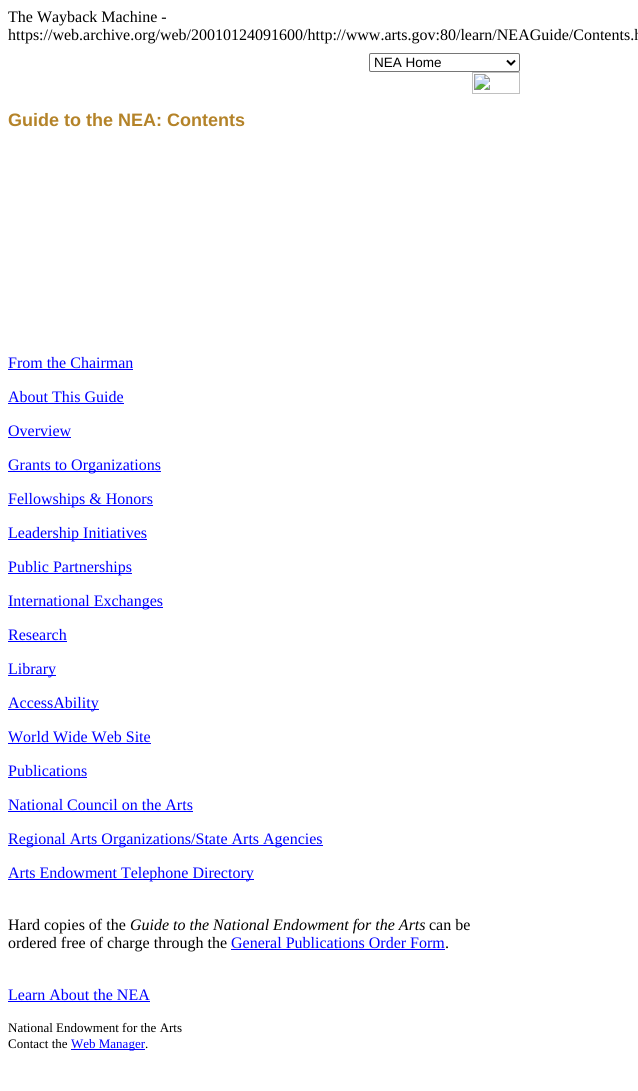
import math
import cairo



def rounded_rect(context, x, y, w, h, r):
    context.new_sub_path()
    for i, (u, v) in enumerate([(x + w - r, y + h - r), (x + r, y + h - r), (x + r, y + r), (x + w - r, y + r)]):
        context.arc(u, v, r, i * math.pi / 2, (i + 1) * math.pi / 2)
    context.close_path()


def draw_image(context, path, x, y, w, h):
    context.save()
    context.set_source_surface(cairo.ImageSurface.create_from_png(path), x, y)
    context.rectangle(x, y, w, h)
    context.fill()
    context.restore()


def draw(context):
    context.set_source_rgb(1, 1, 1)
    context.paint()
    rounded_rect(context, 369.5, 53.5, 150, 18, 1.5)
    context.set_source_rgb(118 / 255, 118 / 255, 118 / 255)
    context.set_line_width(1)
    context.stroke()
    context.new_path()
    context.move_to(507, 60.5)
    context.line_to(511, 64.5)
    context.line_to(515, 60.5)
    context.set_source_rgb(0, 0, 0)
    context.set_line_width(2)
    context.stroke()
    draw_image(context, "images/1.png", 472, 72, 48, 22)
    context.set_source_rgb(0, 0, 1)
    context.rectangle(8, 369, 125, 1)
    context.fill()
    context.rectangle(8, 403, 116, 1)
    context.fill()
    context.rectangle(8, 437, 63, 1)
    context.fill()
    context.rectangle(8, 471, 153, 1)
    context.fill()
    context.rectangle(8, 505, 145, 1)
    context.fill()
    context.rectangle(8, 539, 139, 1)
    context.fill()
    context.rectangle(8, 573, 124, 1)
    context.fill()
    context.rectangle(8, 607, 155, 1)
    context.fill()
    context.rectangle(8, 641, 59, 1)
    context.fill()
    context.rectangle(8, 675, 48, 1)
    context.fill()
    context.rectangle(8, 709, 91, 1)
    context.fill()
    context.rectangle(8, 743, 143, 1)
    context.fill()
    context.rectangle(8, 777, 79, 1)
    context.fill()
    context.rectangle(8, 811, 185, 1)
    context.fill()
    context.rectangle(8, 845, 315, 1)
    context.fill()
    context.rectangle(8, 879, 246, 1)
    context.fill()
    context.rectangle(231, 949, 214, 1)
    context.fill()
    context.rectangle(8, 1001, 142, 1)
    context.fill()
    context.rectangle(71, 1049, 74, 1)
    context.fill()
    context.select_font_face("Liberation Serif")
    context.set_font_size(16)
    context.set_source_rgb(0, 0, 0)
    context.move_to(8, 22)
    context.show_text("The Wayback Machine -")
    context.move_to(8, 40)
    context.show_text("https://web.archive.org/web/20010124091600/http://www.arts.gov:80/learn/NEAGuide/Contents.h")
    context.select_font_face("Liberation Sans")
    context.set_font_size(13.5)
    context.move_to(374, 67)
    context.show_text("NEA Home")
    context.select_font_face("Liberation Sans", cairo.FontSlant.NORMAL, cairo.FontWeight.BOLD)
    context.set_font_size(18)
    context.set_source_rgb(180 / 255, 131 / 255, 41 / 255)
    context.move_to(8, 126)
    context.show_text("Guide to the NEA: Contents")
    context.select_font_face("Liberation Serif")
    context.set_font_size(16)
    context.set_source_rgb(0, 0, 1)
    context.move_to(8, 368)
    context.show_text("From the Chairman")
    context.move_to(8, 402)
    context.show_text("About This Guide")
    context.move_to(8, 436)
    context.show_text("Overview")
    context.move_to(8, 470)
    context.show_text("Grants to Organizations")
    context.move_to(8, 504)
    context.show_text("Fellowships & Honors")
    context.move_to(8, 538)
    context.show_text("Leadership Initiatives")
    context.move_to(8, 572)
    context.show_text("Public Partnerships")
    context.move_to(8, 606)
    context.show_text("International Exchanges")
    context.move_to(8, 640)
    context.show_text("Research")
    context.move_to(8, 674)
    context.show_text("Library")
    context.move_to(8, 708)
    context.show_text("AccessAbility")
    context.move_to(8, 742)
    context.show_text("World Wide Web Site")
    context.move_to(8, 776)
    context.show_text("Publications")
    context.move_to(8, 810)
    context.show_text("National Council on the Arts")
    context.move_to(8, 844)
    context.show_text("Regional Arts Organizations/State Arts Agencies")
    context.move_to(8, 878)
    context.show_text("Arts Endowment Telephone Directory")
    context.set_source_rgb(0, 0, 0)
    context.move_to(8, 930)
    context.show_text("Hard copies of the")
    context.select_font_face("Liberation Serif", cairo.FontSlant.ITALIC)
    context.move_to(130, 930)
    context.show_text("Guide to the National Endowment for the Arts")
    context.select_font_face("Liberation Serif")
    context.move_to(429, 930)
    context.show_text("can be")
    context.move_to(8, 948)
    context.show_text("ordered free of charge through the")
    context.set_source_rgb(0, 0, 1)
    context.move_to(231, 948)
    context.show_text("General Publications Order Form")
    context.set_source_rgb(0, 0, 0)
    context.move_to(445, 948)
    context.show_text(".")
    context.set_source_rgb(0, 0, 1)
    context.move_to(8, 1000)
    context.show_text("Learn About the NEA")
    context.set_font_size(13)
    context.set_source_rgb(0, 0, 0)
    context.move_to(8, 1032)
    context.show_text("National Endowment for the Arts")
    context.move_to(8, 1048)
    context.show_text("Contact the")
    context.set_source_rgb(0, 0, 1)
    context.move_to(71, 1048)
    context.show_text("Web Manager")
    context.set_source_rgb(0, 0, 0)
    context.move_to(145, 1048)
    context.show_text(".")


surface = cairo.ImageSurface(cairo.Format.RGB24, 638, 1091)
context = cairo.Context(surface)
options = cairo.FontOptions()
options.set_hint_metrics(cairo.HintMetrics.OFF)
options.set_hint_style(cairo.HintStyle.NONE)
context.set_font_options(options)
context.set_miter_limit(4)
draw(context)
surface.write_to_png("out.png")
